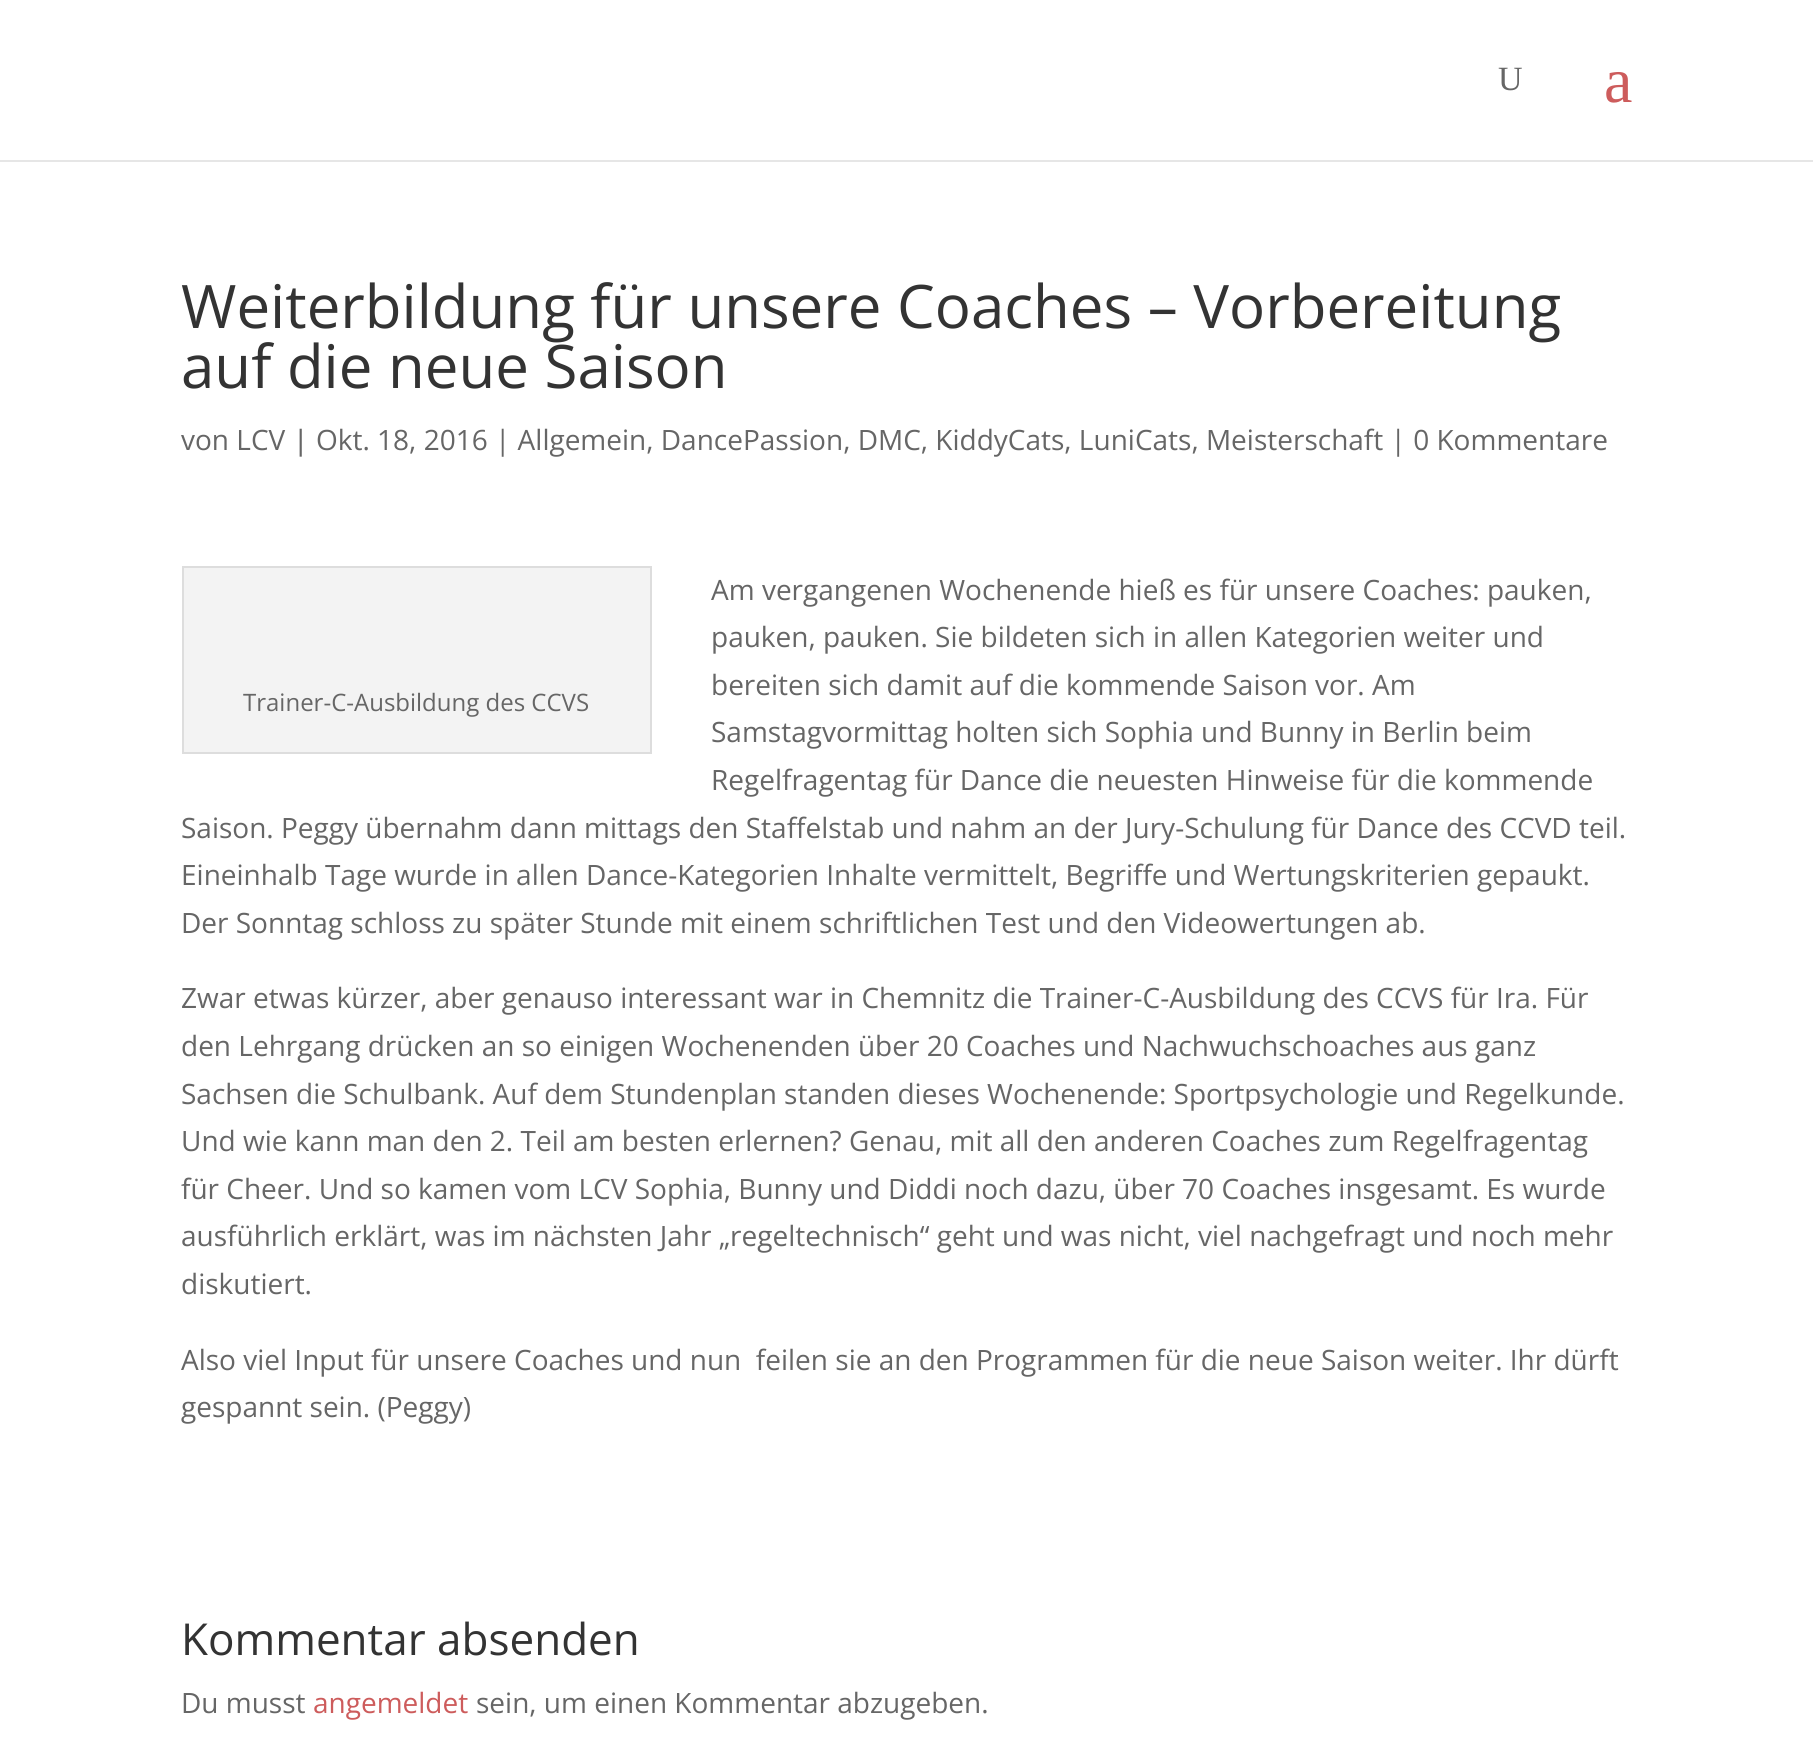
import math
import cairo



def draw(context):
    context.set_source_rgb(1, 1, 1)
    context.paint()
    context.set_source_rgb(230 / 255, 230 / 255, 230 / 255)
    context.rectangle(0, 160, 1813, 2)
    context.fill()
    context.set_source_rgb(243 / 255, 243 / 255, 243 / 255)
    context.rectangle(183, 567, 468, 186)
    context.fill_preserve()
    context.set_source_rgb(221 / 255, 221 / 255, 221 / 255)
    context.stroke()
    context.select_font_face("Liberation Serif")
    context.set_font_size(34)
    context.set_source_rgb(102 / 255, 102 / 255, 102 / 255)
    context.move_to(1498, 90)
    context.show_text("U")
    context.set_font_size(64)
    context.set_source_rgb(205 / 255, 92 / 255, 92 / 255)
    context.move_to(1604, 102)
    context.show_text("a")
    context.select_font_face("Open Sans")
    context.set_font_size(60)
    context.set_source_rgb(51 / 255, 51 / 255, 51 / 255)
    context.move_to(181, 328)
    context.show_text("Weiterbildung für unsere Coaches – Vorbereitung")
    context.move_to(181, 388)
    context.show_text("auf die neue Saison")
    context.set_font_size(28)
    context.set_source_rgb(102 / 255, 102 / 255, 102 / 255)
    context.move_to(181, 450)
    context.show_text("von LCV")
    context.select_font_face("Open Sans Medium")
    context.move_to(293, 450)
    context.show_text("|")
    context.select_font_face("Open Sans")
    context.move_to(316, 450)
    context.show_text("Okt. 18, 2016 | Allgemein, DancePassion, DMC, KiddyCats, LuniCats, Meisterschaft | 0 Kommentare")
    context.move_to(711, 600)
    context.show_text("Am vergangenen Wochenende hieß es für unsere Coaches: pauken,")
    context.move_to(711, 647)
    context.show_text("pauken, pauken. Sie bildeten sich in allen Kategorien weiter und")
    context.move_to(711, 695)
    context.show_text("bereiten sich damit auf die kommende Saison vor. Am")
    context.move_to(711, 742)
    context.show_text("Samstagvormittag holten sich Sophia und Bunny in Berlin beim")
    context.move_to(711, 790)
    context.show_text("Regelfragentag für Dance die neuesten Hinweise für die kommende")
    context.move_to(181, 838)
    context.show_text("Saison. Peggy übernahm dann mittags den Staffelstab und nahm an der Jury-Schulung für Dance des CCVD teil.")
    context.move_to(181, 885)
    context.show_text("Eineinhalb Tage wurde in allen Dance-Kategorien Inhalte vermittelt, Begriffe und Wertungskriterien gepaukt.")
    context.move_to(181, 933)
    context.show_text("Der Sonntag schloss zu später Stunde mit einem schriftlichen Test und den Videowertungen ab.")
    context.set_font_size(24)
    context.move_to(243, 711)
    context.show_text("Trainer-C-Ausbildung des CCVS")
    context.set_font_size(28)
    context.move_to(181, 1008)
    context.show_text("Zwar etwas kürzer, aber genauso interessant war in Chemnitz die Trainer-C-Ausbildung des CCVS für Ira. Für")
    context.move_to(181, 1056)
    context.show_text("den Lehrgang drücken an so einigen Wochenenden über 20 Coaches und Nachwuchschoaches aus ganz")
    context.move_to(181, 1104)
    context.show_text("Sachsen die Schulbank. Auf dem Stundenplan standen dieses Wochenende: Sportpsychologie und Regelkunde.")
    context.move_to(181, 1151)
    context.show_text("Und wie kann man den 2. Teil am besten erlernen? Genau, mit all den anderen Coaches zum Regelfragentag")
    context.move_to(181, 1199)
    context.show_text("für Cheer. Und so kamen vom LCV Sophia, Bunny und Diddi noch dazu, über 70 Coaches insgesamt. Es wurde")
    context.move_to(181, 1246)
    context.show_text("ausführlich erklärt, was im nächsten Jahr „regeltechnisch“ geht und was nicht, viel nachgefragt und noch mehr")
    context.move_to(181, 1294)
    context.show_text("diskutiert.")
    context.move_to(181, 1370)
    context.show_text("Also viel Input für unsere Coaches und nun  feilen sie an den Programmen für die neue Saison weiter. Ihr dürft")
    context.move_to(181, 1417)
    context.show_text("gespannt sein. (Peggy)")
    context.set_font_size(44)
    context.set_source_rgb(51 / 255, 51 / 255, 51 / 255)
    context.move_to(181, 1655)
    context.show_text("Kommentar absenden")
    context.set_font_size(28)
    context.set_source_rgb(102 / 255, 102 / 255, 102 / 255)
    context.move_to(181, 1713)
    context.show_text("Du musst")
    context.set_source_rgb(205 / 255, 92 / 255, 92 / 255)
    context.move_to(313, 1713)
    context.show_text("angemeldet")
    context.set_source_rgb(102 / 255, 102 / 255, 102 / 255)
    context.move_to(476, 1713)
    context.show_text("sein, um einen Kommentar abzugeben.")


surface = cairo.ImageSurface(cairo.Format.RGB24, 1813, 1747)
context = cairo.Context(surface)
options = cairo.FontOptions()
options.set_hint_metrics(cairo.HintMetrics.OFF)
options.set_hint_style(cairo.HintStyle.NONE)
context.set_font_options(options)
context.set_miter_limit(4)
draw(context)
surface.write_to_png("out.png")
